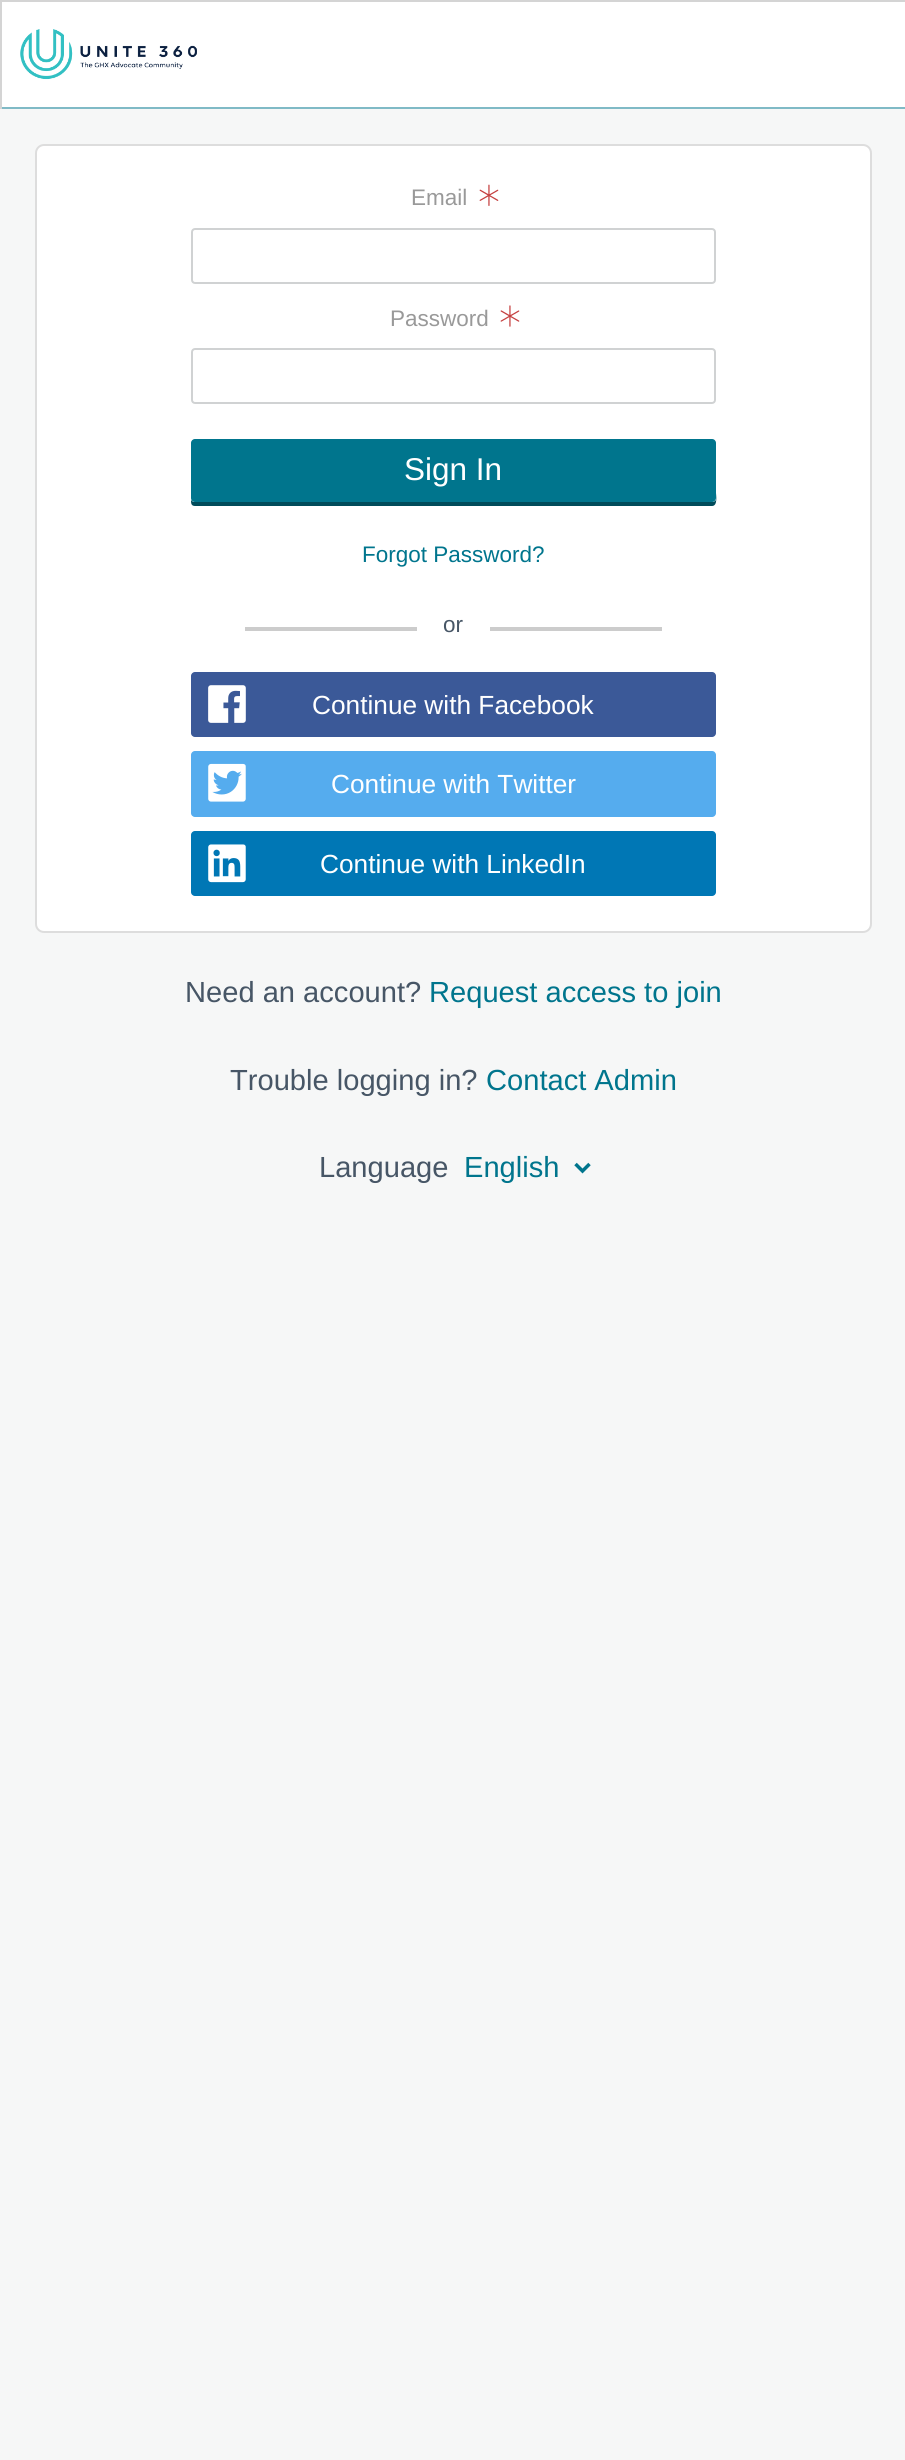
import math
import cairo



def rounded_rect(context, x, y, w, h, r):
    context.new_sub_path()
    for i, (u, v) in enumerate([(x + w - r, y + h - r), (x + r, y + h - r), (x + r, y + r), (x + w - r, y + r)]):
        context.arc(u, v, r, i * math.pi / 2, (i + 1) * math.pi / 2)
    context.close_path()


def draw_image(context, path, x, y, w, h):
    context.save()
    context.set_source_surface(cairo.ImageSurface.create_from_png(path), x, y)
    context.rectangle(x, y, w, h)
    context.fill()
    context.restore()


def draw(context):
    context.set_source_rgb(246 / 255, 247 / 255, 247 / 255)
    context.paint()
    context.set_source_rgb(1, 1, 1)
    context.rectangle(2, 2, 903, 105)
    context.fill()
    context.set_source_rgb(212 / 255, 212 / 255, 212 / 255)
    context.rectangle(0, 0, 905, 2)
    context.fill()
    context.rectangle(0, 0, 2, 109)
    context.fill()
    context.set_source_rgb(128 / 255, 186 / 255, 198 / 255)
    context.rectangle(2, 107, 903, 2)
    context.fill()
    draw_image(context, "images/1.png", 20, 29, 177, 51)
    context.set_source_rgb(1, 1, 1)
    rounded_rect(context, 36, 145, 835, 787, 8)
    context.fill_preserve()
    context.set_source_rgb(221 / 255, 221 / 255, 221 / 255)
    context.stroke()
    draw_image(context, "images/2.png", 479, 184, 20, 22)
    rounded_rect(context, 192, 229, 523, 54, 3)
    context.set_source_rgb(208 / 255, 210 / 255, 211 / 255)
    context.stroke()
    draw_image(context, "images/3.png", 500, 305, 20, 22)
    rounded_rect(context, 192, 349, 523, 54, 3)
    context.stroke()
    context.set_source_rgb(0, 75 / 255, 90 / 255)
    context.new_path()
    context.move_to(191, 500)
    context.curve_to(191, 503, 191, 506, 195, 506)
    context.line_to(712, 506)
    context.curve_to(718, 506, 716, 495, 716, 493)
    context.line_to(716, 446)
    context.line_to(716, 499)
    context.curve_to(716, 501, 714, 502, 712, 502)
    context.line_to(194, 502)
    context.curve_to(193, 502, 192, 501, 191, 500)
    context.close_path()
    context.fill()
    context.set_source_rgb(0, 117 / 255, 141 / 255)
    rounded_rect(context, 191, 439, 525, 63, 4)
    context.fill()
    context.set_source_rgb(204 / 255, 204 / 255, 204 / 255)
    context.rectangle(245, 627, 172, 4)
    context.fill()
    context.rectangle(490, 627, 172, 4)
    context.fill()
    context.set_source_rgb(59 / 255, 89 / 255, 152 / 255)
    rounded_rect(context, 191, 672, 525, 65, 4)
    context.fill()
    draw_image(context, "images/4.png", 208, 685, 38, 38)
    context.set_source_rgb(85 / 255, 172 / 255, 238 / 255)
    rounded_rect(context, 191, 751, 525, 66, 4)
    context.fill()
    draw_image(context, "images/5.png", 208, 763, 38, 39)
    context.set_source_rgb(0, 119 / 255, 181 / 255)
    rounded_rect(context, 191, 831, 525, 65, 4)
    context.fill()
    draw_image(context, "images/6.png", 208, 844, 38, 39)
    context.new_path()
    context.move_to(575.5, 1164)
    context.line_to(582.5, 1171)
    context.line_to(589.5, 1164)
    context.set_source_rgb(0, 117 / 255, 141 / 255)
    context.set_line_width(3.5)
    context.stroke()
    context.select_font_face("Liberation Sans")
    context.set_font_size(22.5)
    context.set_source_rgb(153 / 255, 153 / 255, 153 / 255)
    context.move_to(411, 205)
    context.show_text("Email")
    context.move_to(390, 326)
    context.show_text("Password")
    context.set_font_size(31.5)
    context.set_source_rgb(1, 1, 1)
    context.move_to(404, 480)
    context.show_text("Sign In")
    context.set_font_size(22.5)
    context.set_source_rgb(0, 117 / 255, 141 / 255)
    context.move_to(362, 562)
    context.show_text("Forgot Password?")
    context.set_source_rgb(71 / 255, 86 / 255, 102 / 255)
    context.move_to(443, 632)
    context.show_text("or")
    context.set_font_size(26.25)
    context.set_source_rgb(1, 1, 1)
    context.move_to(312, 714)
    context.show_text("Continue with Facebook")
    context.move_to(331, 793)
    context.show_text("Continue with Twitter")
    context.move_to(320, 873)
    context.show_text("Continue with LinkedIn")
    context.set_font_size(29.1)
    context.set_source_rgb(71 / 255, 86 / 255, 102 / 255)
    context.move_to(185, 1002)
    context.show_text("Need an account?")
    context.set_source_rgb(0, 117 / 255, 141 / 255)
    context.move_to(429, 1002)
    context.show_text("Request access to join")
    context.set_source_rgb(71 / 255, 86 / 255, 102 / 255)
    context.move_to(230, 1090)
    context.show_text("Trouble logging in?")
    context.set_source_rgb(0, 117 / 255, 141 / 255)
    context.move_to(486, 1090)
    context.show_text("Contact Admin")
    context.set_source_rgb(71 / 255, 86 / 255, 102 / 255)
    context.move_to(319, 1177)
    context.show_text("Language")
    context.set_source_rgb(0, 117 / 255, 141 / 255)
    context.move_to(464, 1177)
    context.show_text("English")


surface = cairo.ImageSurface(cairo.Format.RGB24, 905, 2460)
context = cairo.Context(surface)
options = cairo.FontOptions()
options.set_hint_metrics(cairo.HintMetrics.OFF)
options.set_hint_style(cairo.HintStyle.NONE)
context.set_font_options(options)
context.set_miter_limit(4)
draw(context)
surface.write_to_png("out.png")
